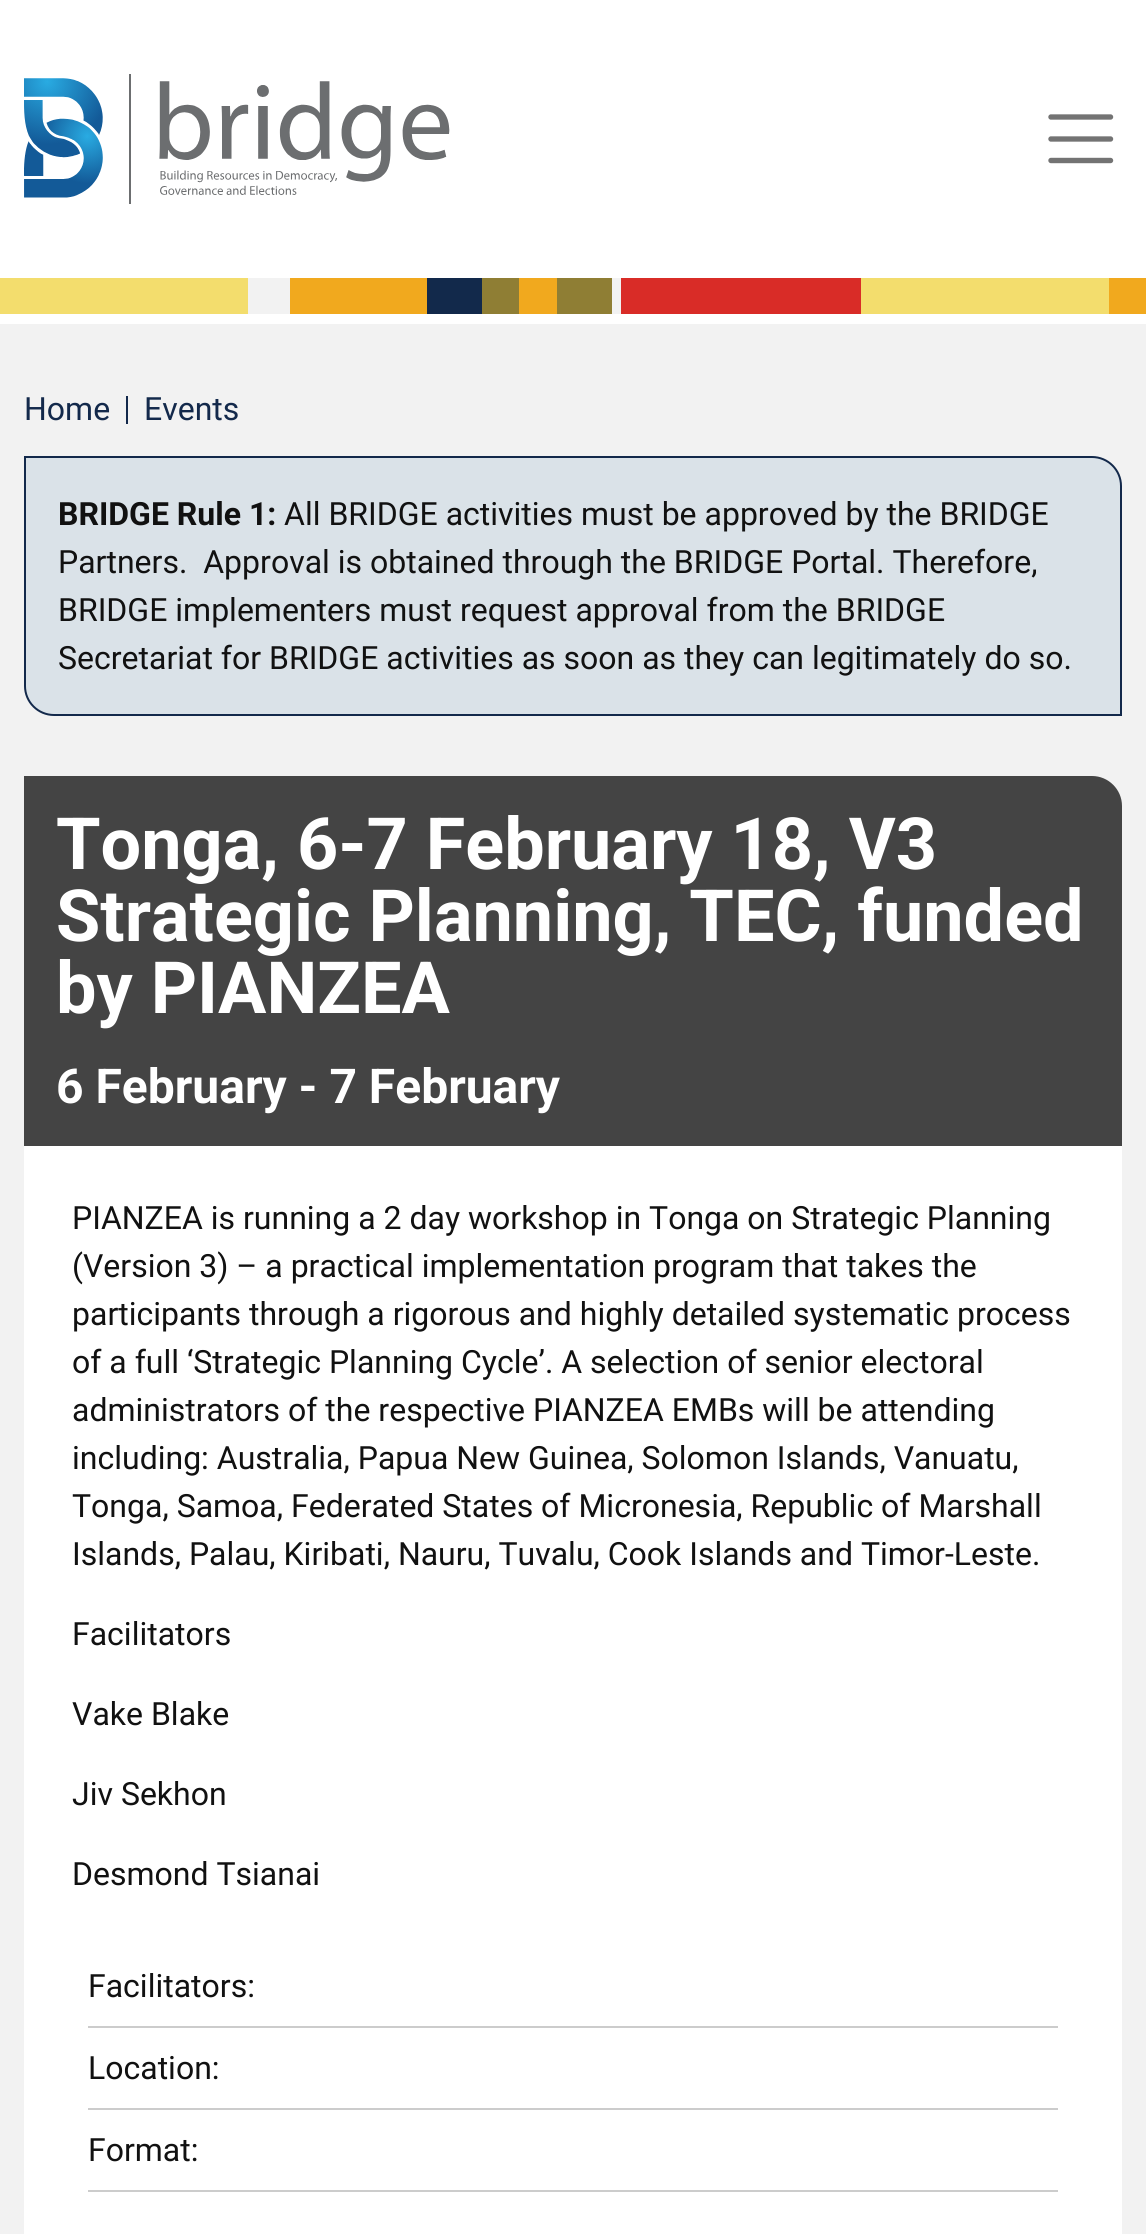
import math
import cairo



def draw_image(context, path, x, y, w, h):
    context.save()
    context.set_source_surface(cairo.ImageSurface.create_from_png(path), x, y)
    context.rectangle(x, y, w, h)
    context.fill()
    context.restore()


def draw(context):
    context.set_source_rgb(242 / 255, 242 / 255, 242 / 255)
    context.paint()
    context.set_source_rgb(1, 1, 1)
    context.rectangle(0, 0, 1146, 278)
    context.fill()
    draw_image(context, "images/1.png", 24, 74, 426, 130)
    context.new_path()
    context.move_to(1051, 117)
    context.line_to(1110.5, 117)
    context.move_to(1051, 139)
    context.line_to(1110.5, 139)
    context.move_to(1051, 160.5)
    context.line_to(1110.5, 160.5)
    context.set_source_rgb(115 / 255, 115 / 255, 115 / 255)
    context.set_line_width(5.4)
    context.set_line_cap(cairo.LineCap.ROUND)
    context.stroke()
    context.set_source_rgb(243 / 255, 221 / 255, 109 / 255)
    context.rectangle(0, 278, 248, 36)
    context.fill()
    context.set_source_rgb(241 / 255, 169 / 255, 30 / 255)
    context.rectangle(290, 278, 137, 36)
    context.fill()
    context.set_source_rgb(18 / 255, 41 / 255, 75 / 255)
    context.rectangle(427, 278, 55, 36)
    context.fill()
    context.set_source_rgb(143 / 255, 126 / 255, 52 / 255)
    context.rectangle(482, 278, 37, 36)
    context.fill()
    context.set_source_rgb(241 / 255, 169 / 255, 30 / 255)
    context.rectangle(519, 278, 38, 36)
    context.fill()
    context.set_source_rgb(143 / 255, 126 / 255, 52 / 255)
    context.rectangle(557, 278, 55, 36)
    context.fill()
    context.set_source_rgb(217 / 255, 44 / 255, 39 / 255)
    context.rectangle(621, 278, 240, 36)
    context.fill()
    context.set_source_rgb(243 / 255, 221 / 255, 109 / 255)
    context.rectangle(861, 278, 248, 36)
    context.fill()
    context.set_source_rgb(241 / 255, 169 / 255, 30 / 255)
    context.rectangle(1109, 278, 37, 36)
    context.fill()
    context.set_source_rgb(1, 1, 1)
    context.rectangle(0, 314, 1146, 10)
    context.fill()
    context.set_source_rgb(19 / 255, 41 / 255, 75 / 255)
    context.rectangle(126, 396, 2, 28)
    context.fill()
    context.set_source_rgb(218 / 255, 226 / 255, 232 / 255)
    context.new_path()
    context.move_to(25, 457)
    context.line_to(1092, 457)
    context.curve_to(1108, 457, 1121, 470, 1121, 486)
    context.line_to(1121, 715)
    context.line_to(54, 715)
    context.curve_to(38, 715, 25, 702, 25, 686)
    context.close_path()
    context.fill_preserve()
    context.set_source_rgb(19 / 255, 41 / 255, 75 / 255)
    context.set_line_width(2)
    context.set_line_cap(cairo.LineCap.BUTT)
    context.stroke()
    context.set_source_rgb(68 / 255, 68 / 255, 68 / 255)
    context.new_path()
    context.move_to(24, 776)
    context.line_to(1092, 776)
    context.curve_to(1108.5, 776, 1122, 789.5, 1122, 806)
    context.line_to(1122, 1146)
    context.line_to(24, 1146)
    context.close_path()
    context.fill()
    context.set_source_rgb(1, 1, 1)
    context.rectangle(24, 1146, 1098, 1088)
    context.fill()
    context.set_source_rgb(204 / 255, 204 / 255, 204 / 255)
    context.rectangle(88, 2026, 970, 2)
    context.fill()
    context.rectangle(88, 2108, 970, 2)
    context.fill()
    context.rectangle(88, 2190, 970, 2)
    context.fill()
    context.select_font_face("Roboto")
    context.set_font_size(32)
    context.set_source_rgb(19 / 255, 41 / 255, 75 / 255)
    context.move_to(24, 420)
    context.show_text("Home")
    context.move_to(144, 420)
    context.show_text("Events")
    context.select_font_face("Roboto", cairo.FontSlant.NORMAL, cairo.FontWeight.BOLD)
    context.set_source_rgb(17 / 255, 17 / 255, 17 / 255)
    context.move_to(58, 525)
    context.show_text("BRIDGE Rule 1:")
    context.select_font_face("Roboto")
    context.move_to(284, 525)
    context.show_text("All BRIDGE activities must be approved by the BRIDGE")
    context.move_to(58, 573)
    context.show_text("Partners.  Approval is obtained through the BRIDGE Portal. Therefore,")
    context.move_to(58, 621)
    context.show_text("BRIDGE implementers must request approval from the BRIDGE")
    context.move_to(58, 669)
    context.show_text("Secretariat for BRIDGE activities as soon as they can legitimately do so.")
    context.select_font_face("Roboto", cairo.FontSlant.NORMAL, cairo.FontWeight.BOLD)
    context.set_font_size(72)
    context.set_source_rgb(1, 1, 1)
    context.move_to(56, 869)
    context.show_text("Tonga, 6-7 February 18, V3")
    context.move_to(56, 941)
    context.show_text("Strategic Planning, TEC, funded")
    context.move_to(56, 1013)
    context.show_text("by PIANZEA")
    context.set_font_size(48)
    context.move_to(56, 1103)
    context.show_text("6 February - 7 February")
    context.select_font_face("Roboto")
    context.set_font_size(32)
    context.set_source_rgb(17 / 255, 17 / 255, 17 / 255)
    context.move_to(72, 1229)
    context.show_text("PIANZEA is running a 2 day workshop in Tonga on Strategic Planning")
    context.move_to(72, 1277)
    context.show_text("(Version 3) – a practical implementation program that takes the")
    context.move_to(72, 1325)
    context.show_text("participants through a rigorous and highly detailed systematic process")
    context.move_to(72, 1373)
    context.show_text("of a full ‘Strategic Planning Cycle’. A selection of senior electoral")
    context.move_to(72, 1421)
    context.show_text("administrators of the respective PIANZEA EMBs will be attending")
    context.move_to(72, 1469)
    context.show_text("including: Australia, Papua New Guinea, Solomon Islands, Vanuatu,")
    context.move_to(72, 1517)
    context.show_text("Tonga, Samoa, Federated States of Micronesia, Republic of Marshall")
    context.move_to(72, 1565)
    context.show_text("Islands, Palau, Kiribati, Nauru, Tuvalu, Cook Islands and Timor-Leste.")
    context.move_to(72, 1645)
    context.show_text("Facilitators")
    context.move_to(72, 1725)
    context.show_text("Vake Blake")
    context.move_to(72, 1805)
    context.show_text("Jiv Sekhon")
    context.move_to(72, 1885)
    context.show_text("Desmond Tsianai")
    context.move_to(88, 1997)
    context.show_text("Facilitators:")
    context.move_to(88, 2079)
    context.show_text("Location:")
    context.move_to(88, 2161)
    context.show_text("Format:")


surface = cairo.ImageSurface(cairo.Format.RGB24, 1146, 2234)
context = cairo.Context(surface)
options = cairo.FontOptions()
options.set_hint_metrics(cairo.HintMetrics.OFF)
options.set_hint_style(cairo.HintStyle.NONE)
context.set_font_options(options)
context.set_miter_limit(4)
draw(context)
surface.write_to_png("out.png")
